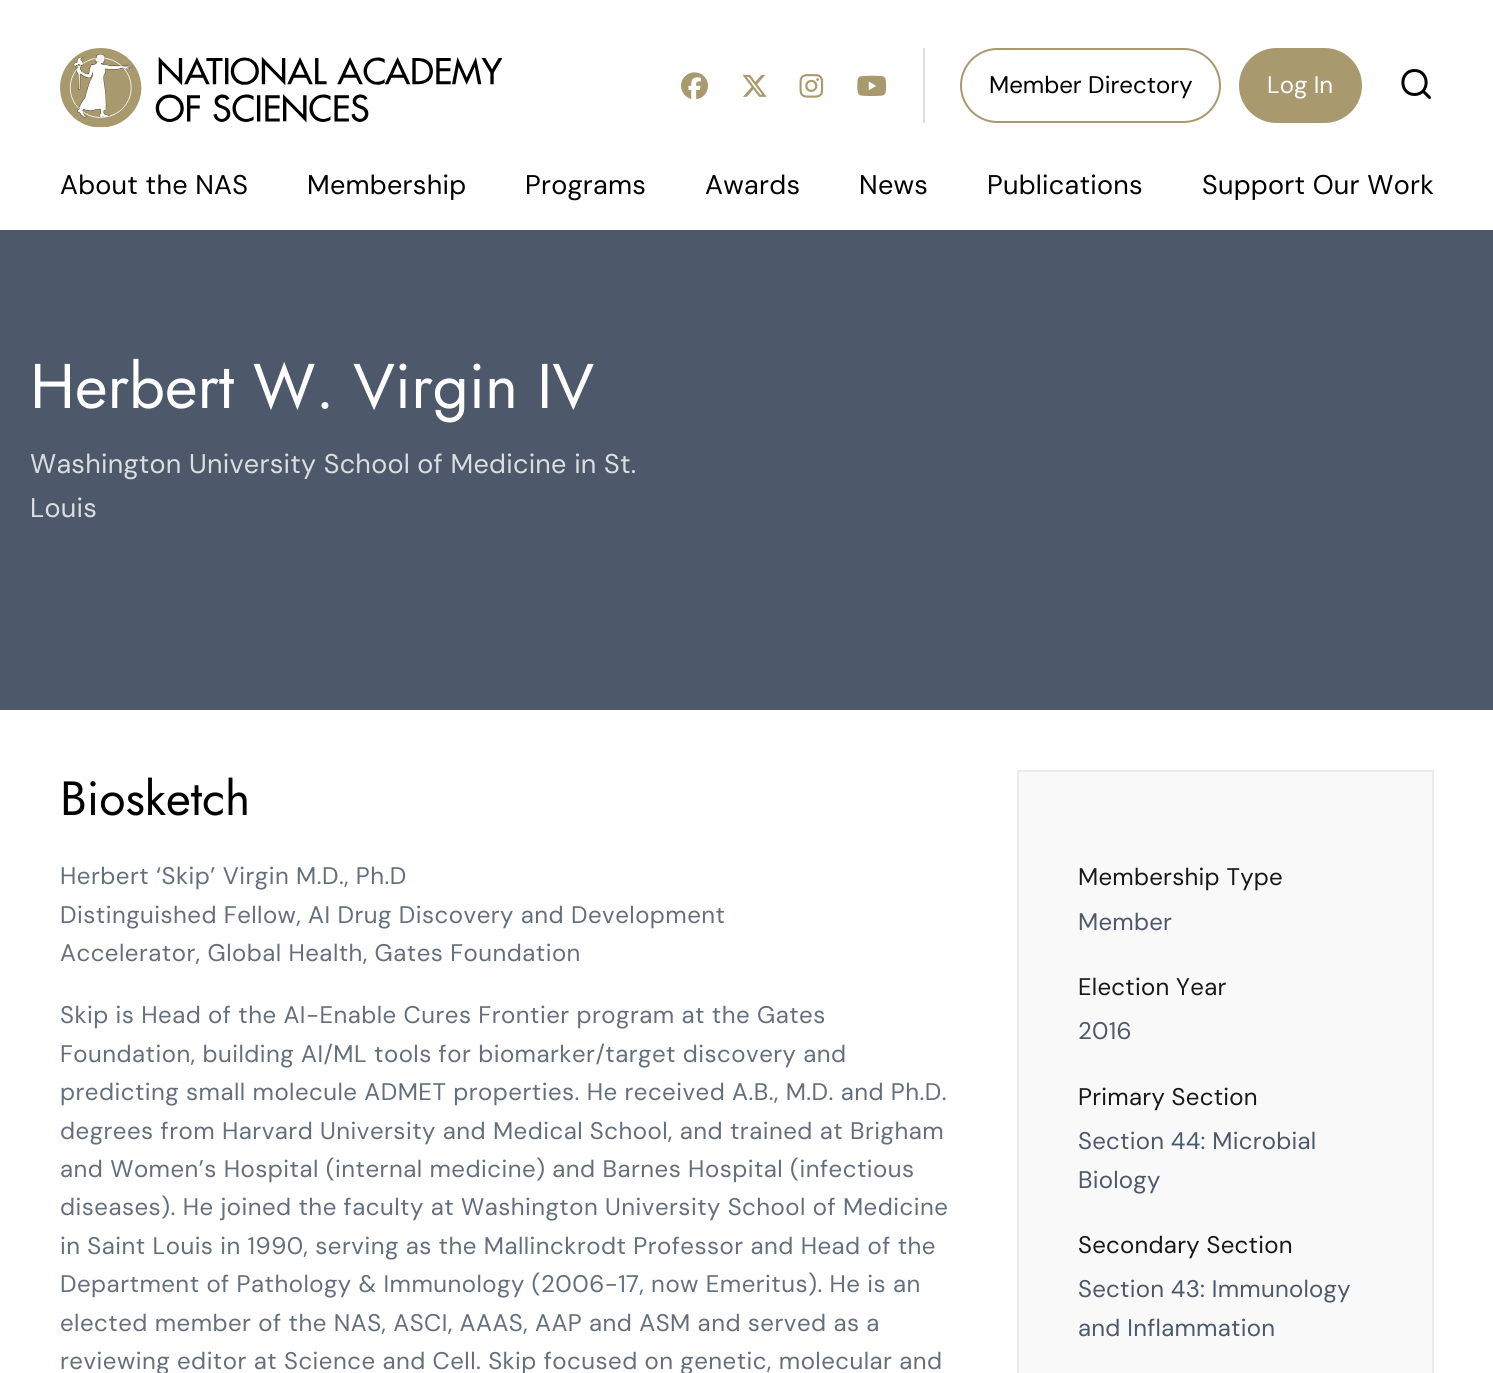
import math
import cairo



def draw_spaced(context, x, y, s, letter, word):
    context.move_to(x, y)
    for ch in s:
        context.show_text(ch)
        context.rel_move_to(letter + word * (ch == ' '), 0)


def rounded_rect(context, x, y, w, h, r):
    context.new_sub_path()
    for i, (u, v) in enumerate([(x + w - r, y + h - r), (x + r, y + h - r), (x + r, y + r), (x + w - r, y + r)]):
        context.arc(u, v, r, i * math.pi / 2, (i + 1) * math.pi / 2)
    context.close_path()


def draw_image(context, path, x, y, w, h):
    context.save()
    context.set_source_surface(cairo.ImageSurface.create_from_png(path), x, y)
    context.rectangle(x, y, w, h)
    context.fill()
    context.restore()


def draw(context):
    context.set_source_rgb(1, 1, 1)
    context.paint()
    draw_image(context, "images/1.png", 60, 48, 443, 80)
    draw_image(context, "images/2.png", 681, 72, 27, 28)
    draw_image(context, "images/3.png", 742, 74, 25, 23)
    draw_image(context, "images/4.png", 799, 74, 25, 24)
    draw_image(context, "images/5.png", 857, 75, 30, 21)
    context.set_source_rgb(223 / 255, 223 / 255, 223 / 255)
    context.rectangle(923, 48, 2, 75)
    context.fill()
    rounded_rect(context, 961, 49, 259, 73, 36.5)
    context.set_source_rgb(168 / 255, 153 / 255, 110 / 255)
    context.stroke()
    rounded_rect(context, 1239, 48, 123, 75, 37.5)
    context.fill()
    context.new_path()
    context.move_to(1414.5, 94.5)
    context.curve_to(1430, 94.5, 1430, 70.5, 1414.5, 70.5)
    context.curve_to(1399, 70.5, 1399, 94.5, 1414.5, 94.5)
    context.close_path()
    context.move_to(1429.5, 97.5)
    context.line_to(1423, 91)
    context.set_source_rgb(0, 0, 0)
    context.set_line_width(3)
    context.set_line_cap(cairo.LineCap.ROUND)
    context.set_line_join(cairo.LineJoin.ROUND)
    context.stroke()
    context.set_source_rgb(77 / 255, 89 / 255, 106 / 255)
    context.rectangle(0, 230, 1493, 480)
    context.fill()
    context.set_source_rgb(249 / 255, 249 / 255, 249 / 255)
    context.rectangle(1018, 771, 415, 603)
    context.fill_preserve()
    context.set_source_rgb(235 / 255, 235 / 255, 235 / 255)
    context.set_line_width(2)
    context.set_line_cap(cairo.LineCap.BUTT)
    context.set_line_join(cairo.LineJoin.MITER)
    context.stroke()
    context.select_font_face("DM Sans")
    context.set_font_size(24)
    context.set_source_rgb(0, 0, 0)
    context.move_to(989, 93)
    context.show_text("Member Directory")
    context.set_source_rgb(1, 1, 1)
    context.move_to(1267, 93)
    context.show_text("Log In")
    context.set_font_size(27)
    context.set_source_rgb(0, 0, 0)
    draw_spaced(context, 60, 194, "About the NAS", 0.25, 0)
    draw_spaced(context, 307, 194, "Membership", 0.25, 0)
    draw_spaced(context, 525, 194, "Programs", 0.25, 0)
    draw_spaced(context, 705, 194, "Awards", 0.25, 0)
    draw_spaced(context, 859, 194, "News", 0.25, 0)
    draw_spaced(context, 987, 194, "Publications", 0.25, 0)
    draw_spaced(context, 1202, 194, "Support Our Work", 0.25, 0)
    context.select_font_face("Jost")
    context.set_font_size(63)
    context.set_source_rgb(1, 1, 1)
    context.move_to(30, 408)
    context.show_text("Herbert W. Virgin IV")
    context.select_font_face("DM Sans")
    context.set_font_size(27)
    context.set_source_rgb(219 / 255, 222 / 255, 225 / 255)
    draw_spaced(context, 30, 473, "Washington University School of Medicine in St.", 0.25, 0)
    draw_spaced(context, 30, 517, "Louis", 0.25, 0)
    context.select_font_face("Jost")
    context.set_font_size(48)
    context.set_source_rgb(0, 0, 0)
    context.move_to(60, 815)
    context.show_text("Biosketch")
    context.select_font_face("DM Sans")
    context.set_font_size(24)
    context.set_source_rgb(101 / 255, 111 / 255, 124 / 255)
    draw_spaced(context, 60, 884, "Herbert ‘Skip’ Virgin M.D., Ph.D", 0.48, 0)
    draw_spaced(context, 60, 923, "Distinguished Fellow, AI Drug Discovery and Development", 0.48, 0)
    draw_spaced(context, 60, 961, "Accelerator, Global Health, Gates Foundation", 0.48, 0)
    draw_spaced(context, 60, 1023, "Skip is Head of the AI-Enable Cures Frontier program at the Gates", 0.48, 0)
    draw_spaced(context, 60, 1062, "Foundation, building AI/ML tools for biomarker/target discovery and", 0.48, 0)
    draw_spaced(context, 60, 1100, "predicting small molecule ADMET properties. He received A.B., M.D. and Ph.D.", 0.48, 0)
    draw_spaced(context, 60, 1139, "degrees from Harvard University and Medical School, and trained at Brigham", 0.48, 0)
    draw_spaced(context, 60, 1177, "and Women’s Hospital (internal medicine) and Barnes Hospital (infectious", 0.48, 0)
    draw_spaced(context, 60, 1215, "diseases). He joined the faculty at Washington University School of Medicine", 0.48, 0)
    draw_spaced(context, 60, 1254, "in Saint Louis in 1990, serving as the Mallinckrodt Professor and Head of the", 0.48, 0)
    draw_spaced(context, 60, 1292, "Department of Pathology & Immunology (2006-17, now Emeritus). He is an", 0.48, 0)
    draw_spaced(context, 60, 1331, "elected member of the NAS, ASCI, AAAS, AAP and ASM and served as a", 0.48, 0)
    draw_spaced(context, 60, 1369, "reviewing editor at Science and Cell. Skip focused on genetic, molecular and", 0.48, 0)
    context.set_source_rgb(24 / 255, 24 / 255, 24 / 255)
    draw_spaced(context, 1078, 885, "Membership Type", 0.25, 0)
    context.set_source_rgb(77 / 255, 89 / 255, 106 / 255)
    draw_spaced(context, 1078, 930, "Member", 0.25, 0)
    context.set_source_rgb(24 / 255, 24 / 255, 24 / 255)
    draw_spaced(context, 1078, 995, "Election Year", 0.25, 0)
    context.set_source_rgb(77 / 255, 89 / 255, 106 / 255)
    draw_spaced(context, 1078, 1039, "2016", 0.25, 0)
    context.set_source_rgb(24 / 255, 24 / 255, 24 / 255)
    draw_spaced(context, 1078, 1105, "Primary Section", 0.25, 0)
    context.set_source_rgb(77 / 255, 89 / 255, 106 / 255)
    draw_spaced(context, 1078, 1149, "Section 44: Microbial", 0.25, 0)
    draw_spaced(context, 1078, 1188, "Biology", 0.25, 0)
    context.set_source_rgb(24 / 255, 24 / 255, 24 / 255)
    draw_spaced(context, 1078, 1253, "Secondary Section", 0.25, 0)
    context.set_source_rgb(77 / 255, 89 / 255, 106 / 255)
    draw_spaced(context, 1078, 1297, "Section 43: Immunology", 0.25, 0)
    draw_spaced(context, 1078, 1336, "and Inflammation", 0.25, 0)


surface = cairo.ImageSurface(cairo.Format.RGB24, 1493, 1373)
context = cairo.Context(surface)
options = cairo.FontOptions()
options.set_hint_metrics(cairo.HintMetrics.OFF)
options.set_hint_style(cairo.HintStyle.NONE)
context.set_font_options(options)
context.set_miter_limit(4)
draw(context)
surface.write_to_png("out.png")
